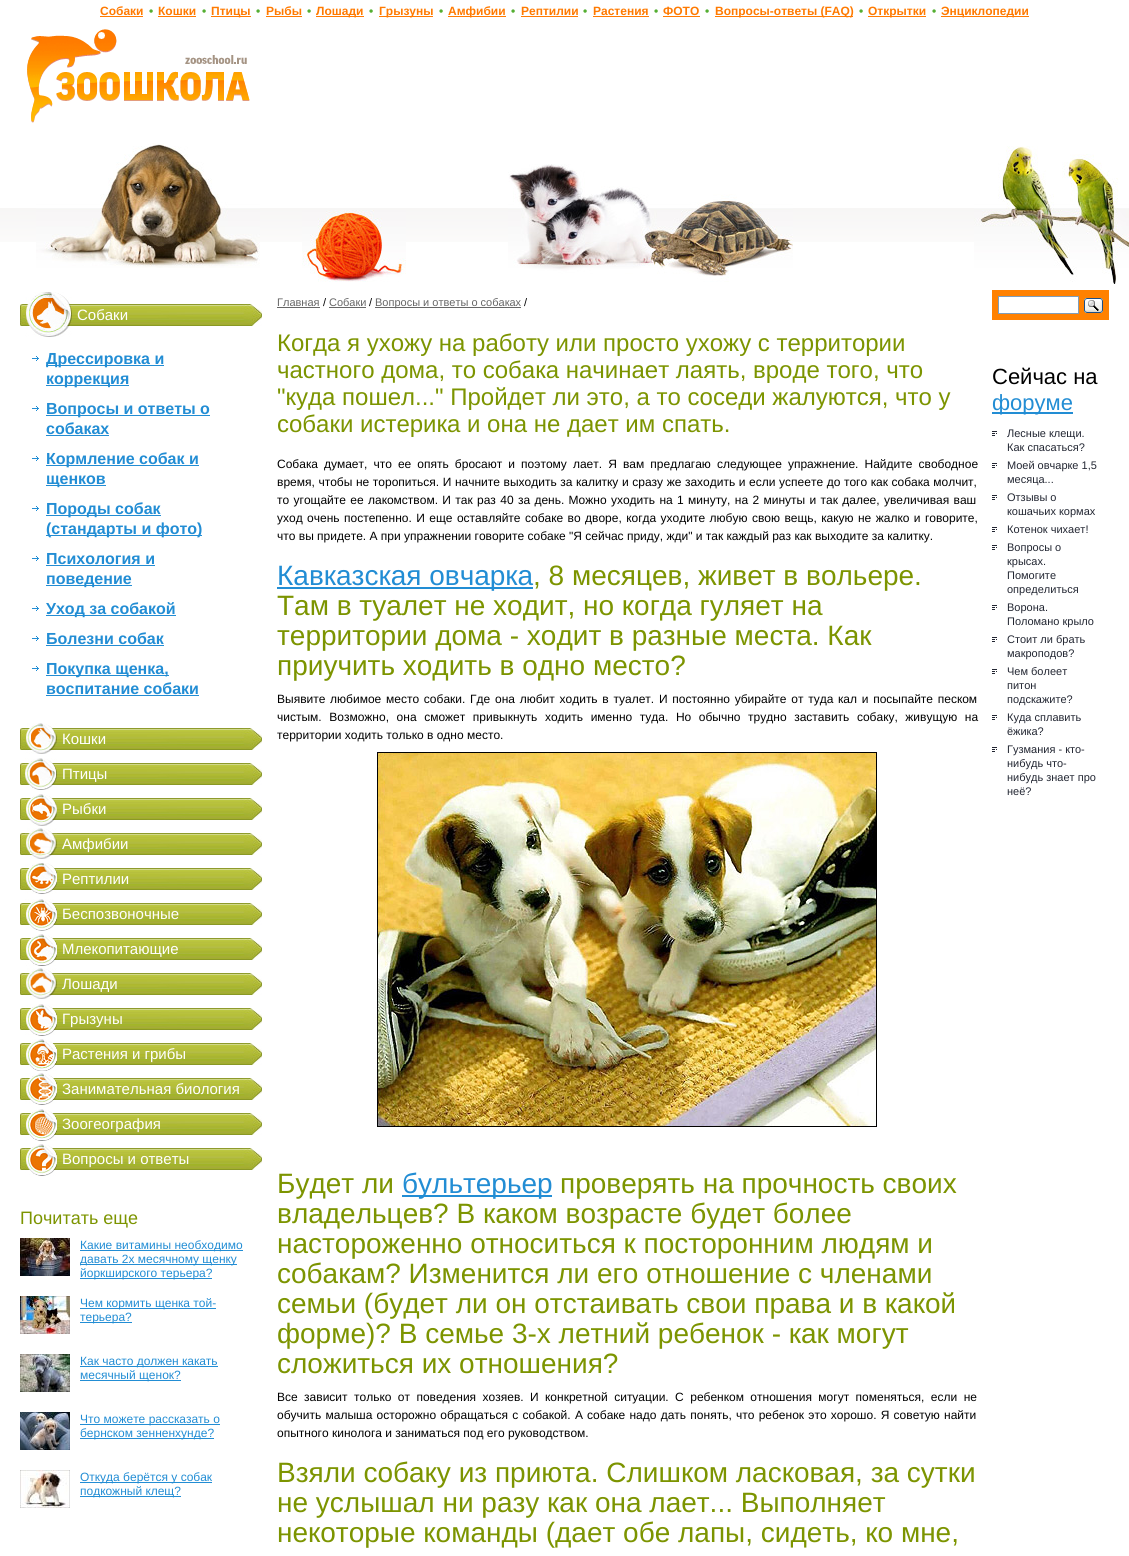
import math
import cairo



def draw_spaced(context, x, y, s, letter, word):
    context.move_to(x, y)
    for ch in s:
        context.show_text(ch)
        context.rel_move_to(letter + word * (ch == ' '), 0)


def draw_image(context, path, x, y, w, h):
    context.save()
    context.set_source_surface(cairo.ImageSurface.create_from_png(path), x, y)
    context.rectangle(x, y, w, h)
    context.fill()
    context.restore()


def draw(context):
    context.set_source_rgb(1, 1, 1)
    context.paint()
    context.set_source_rgb(1, 122 / 255, 1 / 255)
    context.rectangle(100, 16, 43, 1)
    context.fill()
    context.rectangle(158, 16, 38, 1)
    context.fill()
    context.rectangle(211, 16, 40, 1)
    context.fill()
    context.rectangle(266, 16, 36, 1)
    context.fill()
    context.rectangle(316, 16, 48, 1)
    context.fill()
    context.rectangle(379, 16, 54, 1)
    context.fill()
    context.rectangle(448, 16, 58, 1)
    context.fill()
    context.rectangle(521, 16, 57, 1)
    context.fill()
    context.rectangle(593, 16, 56, 1)
    context.fill()
    context.rectangle(663, 16, 37, 1)
    context.fill()
    context.rectangle(715, 16, 138, 1)
    context.fill()
    context.rectangle(868, 16, 58, 1)
    context.fill()
    context.rectangle(941, 16, 88, 1)
    context.fill()
    draw_image(context, "images/1.png", 27, 29, 223, 94)
    draw_image(context, "images/2.png", 0, 208, 302, 34)
    draw_image(context, "images/3.png", 36, 143, 224, 125)
    draw_image(context, "images/4.png", 302, 208, 187, 34)
    draw_image(context, "images/5.png", 302, 210, 104, 72)
    draw_image(context, "images/6.png", 489, 208, 485, 34)
    draw_image(context, "images/7.png", 508, 164, 285, 118)
    draw_image(context, "images/8.png", 974, 146, 155, 138)
    draw_image(context, "images/9.png", 20, 304, 242, 22)
    draw_image(context, "images/10.png", 25, 292, 47, 45)
    draw_image(context, "images/11.png", 32, 356, 7, 5)
    context.set_source_rgb(34 / 255, 141 / 255, 212 / 255)
    context.rectangle(46, 365, 118, 1)
    context.fill()
    context.rectangle(46, 385, 83, 1)
    context.fill()
    draw_image(context, "images/11.png", 32, 406, 7, 5)
    context.rectangle(46, 415, 164, 1)
    context.fill()
    context.rectangle(46, 435, 63, 1)
    context.fill()
    draw_image(context, "images/11.png", 32, 456, 7, 5)
    context.rectangle(46, 465, 153, 1)
    context.fill()
    context.rectangle(46, 485, 60, 1)
    context.fill()
    draw_image(context, "images/11.png", 32, 506, 7, 5)
    context.rectangle(46, 515, 115, 1)
    context.fill()
    context.rectangle(46, 535, 156, 1)
    context.fill()
    draw_image(context, "images/11.png", 32, 556, 7, 5)
    context.rectangle(46, 565, 109, 1)
    context.fill()
    context.rectangle(46, 585, 86, 1)
    context.fill()
    draw_image(context, "images/11.png", 32, 606, 7, 5)
    context.rectangle(46, 615, 130, 1)
    context.fill()
    draw_image(context, "images/11.png", 32, 636, 7, 5)
    context.rectangle(46, 645, 118, 1)
    context.fill()
    draw_image(context, "images/11.png", 32, 666, 7, 5)
    context.rectangle(46, 675, 123, 1)
    context.fill()
    context.rectangle(46, 695, 153, 1)
    context.fill()
    draw_image(context, "images/9.png", 20, 728, 242, 22)
    draw_image(context, "images/12.png", 25, 723, 32, 31)
    draw_image(context, "images/9.png", 20, 763, 242, 22)
    draw_image(context, "images/13.png", 25, 758, 32, 32)
    draw_image(context, "images/9.png", 20, 798, 242, 22)
    draw_image(context, "images/14.png", 25, 794, 32, 32)
    draw_image(context, "images/9.png", 20, 833, 242, 22)
    draw_image(context, "images/15.png", 25, 828, 32, 31)
    draw_image(context, "images/9.png", 20, 868, 242, 22)
    draw_image(context, "images/16.png", 25, 863, 32, 31)
    draw_image(context, "images/9.png", 20, 903, 242, 22)
    draw_image(context, "images/17.png", 25, 899, 32, 32)
    draw_image(context, "images/9.png", 20, 938, 242, 22)
    draw_image(context, "images/18.png", 25, 934, 32, 32)
    draw_image(context, "images/9.png", 20, 973, 242, 22)
    draw_image(context, "images/19.png", 25, 968, 32, 31)
    draw_image(context, "images/9.png", 20, 1008, 242, 22)
    draw_image(context, "images/20.png", 25, 1004, 32, 32)
    draw_image(context, "images/9.png", 20, 1043, 242, 22)
    draw_image(context, "images/21.png", 25, 1039, 32, 32)
    draw_image(context, "images/9.png", 20, 1078, 242, 22)
    draw_image(context, "images/22.png", 25, 1073, 32, 32)
    draw_image(context, "images/9.png", 20, 1113, 242, 22)
    draw_image(context, "images/23.png", 25, 1109, 32, 32)
    draw_image(context, "images/9.png", 20, 1148, 242, 22)
    draw_image(context, "images/24.png", 25, 1144, 32, 32)
    draw_image(context, "images/25.png", 20, 1238, 50, 38)
    context.rectangle(80, 1250, 163, 1)
    context.fill()
    context.rectangle(80, 1264, 157, 1)
    context.fill()
    context.rectangle(80, 1278, 132, 1)
    context.fill()
    draw_image(context, "images/26.png", 20, 1296, 50, 38)
    context.rectangle(80, 1308, 136, 1)
    context.fill()
    context.rectangle(80, 1322, 52, 1)
    context.fill()
    draw_image(context, "images/27.png", 20, 1354, 50, 38)
    context.rectangle(80, 1366, 138, 1)
    context.fill()
    context.rectangle(80, 1380, 101, 1)
    context.fill()
    draw_image(context, "images/28.png", 20, 1412, 50, 38)
    context.rectangle(80, 1424, 140, 1)
    context.fill()
    context.rectangle(80, 1438, 134, 1)
    context.fill()
    draw_image(context, "images/29.png", 20, 1470, 50, 38)
    context.rectangle(80, 1482, 132, 1)
    context.fill()
    context.rectangle(80, 1496, 101, 1)
    context.fill()
    context.set_source_rgb(102 / 255, 102 / 255, 102 / 255)
    context.rectangle(277, 307, 43, 1)
    context.fill()
    context.rectangle(329, 307, 37, 1)
    context.fill()
    context.rectangle(375, 307, 146, 1)
    context.fill()
    context.set_source_rgb(34 / 255, 141 / 255, 212 / 255)
    context.rectangle(277, 587, 256, 2)
    context.fill()
    draw_image(context, "images/30.png", 377, 752, 500, 375)
    context.rectangle(402, 1195, 150, 2)
    context.fill()
    context.set_source_rgb(1, 129 / 255, 0)
    context.rectangle(992, 290, 117, 30)
    context.fill()
    context.set_source_rgb(1, 1, 1)
    context.rectangle(998.5, 296.5, 80, 17)
    context.fill_preserve()
    context.set_source_rgb(127 / 255, 157 / 255, 185 / 255)
    context.set_line_width(1)
    context.stroke()
    draw_image(context, "images/31.png", 1084, 298, 19, 15)
    context.set_source_rgb(34 / 255, 141 / 255, 212 / 255)
    context.rectangle(992, 412, 81, 2)
    context.fill()
    draw_image(context, "images/32.png", 992, 431, 5, 5)
    draw_image(context, "images/32.png", 992, 463, 5, 5)
    draw_image(context, "images/32.png", 992, 495, 5, 5)
    draw_image(context, "images/32.png", 992, 527, 5, 5)
    draw_image(context, "images/32.png", 992, 545, 5, 5)
    draw_image(context, "images/32.png", 992, 605, 5, 5)
    draw_image(context, "images/32.png", 992, 637, 5, 5)
    draw_image(context, "images/32.png", 992, 669, 5, 5)
    draw_image(context, "images/32.png", 992, 715, 5, 5)
    draw_image(context, "images/32.png", 992, 747, 5, 5)
    context.select_font_face("Liberation Sans", cairo.FontSlant.NORMAL, cairo.FontWeight.BOLD)
    context.set_font_size(12)
    context.set_source_rgb(1, 122 / 255, 1 / 255)
    context.move_to(100, 15)
    context.show_text("Собаки")
    context.set_source_rgb(84 / 255, 174 / 255, 50 / 255)
    context.move_to(149, 15)
    context.show_text("•")
    context.set_source_rgb(1, 122 / 255, 1 / 255)
    context.move_to(158, 15)
    context.show_text("Кошки")
    context.set_source_rgb(84 / 255, 174 / 255, 50 / 255)
    context.move_to(202, 15)
    context.show_text("•")
    context.set_source_rgb(1, 122 / 255, 1 / 255)
    context.move_to(211, 15)
    context.show_text("Птицы")
    context.set_source_rgb(84 / 255, 174 / 255, 50 / 255)
    context.move_to(256, 15)
    context.show_text("•")
    context.set_source_rgb(1, 122 / 255, 1 / 255)
    context.move_to(266, 15)
    context.show_text("Рыбы")
    context.set_source_rgb(84 / 255, 174 / 255, 50 / 255)
    context.move_to(307, 15)
    context.show_text("•")
    context.set_source_rgb(1, 122 / 255, 1 / 255)
    context.move_to(316, 15)
    context.show_text("Лошади")
    context.set_source_rgb(84 / 255, 174 / 255, 50 / 255)
    context.move_to(369, 15)
    context.show_text("•")
    context.set_source_rgb(1, 122 / 255, 1 / 255)
    context.move_to(379, 15)
    context.show_text("Грызуны")
    context.set_source_rgb(84 / 255, 174 / 255, 50 / 255)
    context.move_to(439, 15)
    context.show_text("•")
    context.set_source_rgb(1, 122 / 255, 1 / 255)
    context.move_to(448, 15)
    context.show_text("Амфибии")
    context.set_source_rgb(84 / 255, 174 / 255, 50 / 255)
    context.move_to(511, 15)
    context.show_text("•")
    context.set_source_rgb(1, 122 / 255, 1 / 255)
    context.move_to(521, 15)
    context.show_text("Рептилии")
    context.set_source_rgb(84 / 255, 174 / 255, 50 / 255)
    context.move_to(583, 15)
    context.show_text("•")
    context.set_source_rgb(1, 122 / 255, 1 / 255)
    context.move_to(593, 15)
    context.show_text("Растения")
    context.set_source_rgb(84 / 255, 174 / 255, 50 / 255)
    context.move_to(654, 15)
    context.show_text("•")
    context.set_source_rgb(1, 122 / 255, 1 / 255)
    context.move_to(663, 15)
    context.show_text("ФОТО")
    context.set_source_rgb(84 / 255, 174 / 255, 50 / 255)
    context.move_to(705, 15)
    context.show_text("•")
    context.set_source_rgb(1, 122 / 255, 1 / 255)
    context.move_to(715, 15)
    context.show_text("Вопросы-ответы (FAQ)")
    context.set_source_rgb(84 / 255, 174 / 255, 50 / 255)
    context.move_to(859, 15)
    context.show_text("•")
    context.set_source_rgb(1, 122 / 255, 1 / 255)
    context.move_to(868, 15)
    context.show_text("Открытки")
    context.set_source_rgb(84 / 255, 174 / 255, 50 / 255)
    context.move_to(932, 15)
    context.show_text("•")
    context.set_source_rgb(1, 122 / 255, 1 / 255)
    context.move_to(941, 15)
    context.show_text("Энциклопедии")
    context.select_font_face("Liberation Sans")
    context.set_font_size(15)
    context.set_source_rgb(1, 1, 1)
    context.move_to(77, 320)
    context.show_text("Собаки")
    context.select_font_face("Liberation Sans", cairo.FontSlant.NORMAL, cairo.FontWeight.BOLD)
    context.set_font_size(16)
    context.set_source_rgb(34 / 255, 141 / 255, 212 / 255)
    context.move_to(46, 364)
    context.show_text("Дрессировка и")
    context.move_to(46, 384)
    context.show_text("коррекция")
    context.move_to(46, 414)
    context.show_text("Вопросы и ответы о")
    context.move_to(46, 434)
    context.show_text("собаках")
    context.move_to(46, 464)
    context.show_text("Кормление собак и")
    context.move_to(46, 484)
    context.show_text("щенков")
    context.move_to(46, 514)
    context.show_text("Породы собак")
    context.move_to(46, 534)
    context.show_text("(стандарты и фото)")
    context.move_to(46, 564)
    context.show_text("Психология и")
    context.move_to(46, 584)
    context.show_text("поведение")
    context.move_to(46, 614)
    context.show_text("Уход за собакой")
    context.move_to(46, 644)
    context.show_text("Болезни собак")
    context.move_to(46, 674)
    context.show_text("Покупка щенка,")
    context.move_to(46, 694)
    context.show_text("воспитание собаки")
    context.select_font_face("Liberation Sans")
    context.set_font_size(15)
    context.set_source_rgb(1, 1, 1)
    context.move_to(62, 744)
    context.show_text("Кошки")
    context.move_to(62, 779)
    context.show_text("Птицы")
    context.move_to(62, 814)
    context.show_text("Рыбки")
    context.move_to(62, 849)
    context.show_text("Амфибии")
    context.move_to(62, 884)
    context.show_text("Рептилии")
    context.move_to(62, 919)
    context.show_text("Беспозвоночные")
    context.move_to(62, 954)
    context.show_text("Млекопитающие")
    context.move_to(62, 989)
    context.show_text("Лошади")
    context.move_to(62, 1024)
    context.show_text("Грызуны")
    context.move_to(62, 1059)
    context.show_text("Растения и грибы")
    context.move_to(62, 1094)
    context.show_text("Занимательная биология")
    context.move_to(62, 1129)
    context.show_text("Зоогеография")
    context.move_to(62, 1164)
    context.show_text("Вопросы и ответы")
    context.set_font_size(18)
    context.set_source_rgb(124 / 255, 148 / 255, 0)
    context.move_to(20, 1224)
    context.show_text("Почитать еще")
    context.set_font_size(12)
    context.set_source_rgb(34 / 255, 141 / 255, 212 / 255)
    context.move_to(80, 1249)
    context.show_text("Какие витамины необходимо")
    context.move_to(80, 1263)
    context.show_text("давать 2х месячному щенку")
    context.move_to(80, 1277)
    context.show_text("йоркширского терьера?")
    context.move_to(80, 1307)
    context.show_text("Чем кормить щенка той-")
    context.move_to(80, 1321)
    context.show_text("терьера?")
    context.move_to(80, 1365)
    context.show_text("Как часто должен какать")
    context.move_to(80, 1379)
    context.show_text("месячный щенок?")
    context.move_to(80, 1423)
    context.show_text("Что можете рассказать о")
    context.move_to(80, 1437)
    context.show_text("бернском зенненхунде?")
    context.move_to(80, 1481)
    context.show_text("Откуда берётся у собак")
    context.move_to(80, 1495)
    context.show_text("подкожный клещ?")
    context.set_font_size(11)
    context.set_source_rgb(102 / 255, 102 / 255, 102 / 255)
    context.move_to(277, 306)
    context.show_text("Главная")
    context.set_source_rgb(0, 0, 0)
    context.move_to(323, 306)
    context.show_text("/")
    context.set_source_rgb(102 / 255, 102 / 255, 102 / 255)
    context.move_to(329, 306)
    context.show_text("Собаки")
    context.set_source_rgb(0, 0, 0)
    context.move_to(369, 306)
    context.show_text("/")
    context.set_source_rgb(102 / 255, 102 / 255, 102 / 255)
    context.move_to(375, 306)
    context.show_text("Вопросы и ответы о собаках")
    context.set_source_rgb(0, 0, 0)
    context.move_to(524, 306)
    context.show_text("/")
    context.set_font_size(24)
    context.set_source_rgb(124 / 255, 148 / 255, 0)
    context.move_to(277, 351)
    context.show_text("Когда я ухожу на работу или просто ухожу с территории")
    context.move_to(277, 378)
    context.show_text("частного дома, то собака начинает лаять, вроде того, что")
    context.move_to(277, 405)
    context.show_text("\"куда пошел...\" Пройдет ли это, а то соседи жалуются, что у")
    context.move_to(277, 432)
    context.show_text("собаки истерика и она не дает им спать.")
    context.set_font_size(12)
    context.set_source_rgb(0, 0, 0)
    draw_spaced(context, 277, 468, "Собака думает, что ее опять бросают и поэтому лает. Я вам предлагаю следующее упражнение. Найдите свободное", 0, 2.75)
    draw_spaced(context, 277, 486, "время, чтобы не торопиться. И начните выходить за калитку и сразу же заходить и если успеете до того как собака молчит,", 0, 0.25)
    draw_spaced(context, 277, 504, "то угощайте ее лакомством. И так раз 40 за день. Можно уходить на 1 минуту, на 2 минуты и так далее, увеличивая ваш", 0, 1)
    draw_spaced(context, 277, 522, "уход очень постепенно. И еще оставляйте собаке во дворе, когда уходите любую свою вещь, какую не жалко и говорите,", 0, 1.1)
    context.move_to(277, 540)
    context.show_text("что вы придете. А при упражнении говорите собаке \"Я сейчас приду, жди\" и так каждый раз как выходите за калитку.")
    context.set_font_size(28)
    context.set_source_rgb(34 / 255, 141 / 255, 212 / 255)
    context.move_to(277, 585)
    context.show_text("Кавказская овчарка")
    context.set_source_rgb(124 / 255, 148 / 255, 0)
    context.move_to(533, 585)
    context.show_text(", 8 месяцев, живет в вольере.")
    context.move_to(277, 615)
    context.show_text("Там в туалет не ходит, но когда гуляет на")
    context.move_to(277, 645)
    context.show_text("территории дома - ходит в разные места. Как")
    context.move_to(277, 675)
    context.show_text("приучить ходить в одно место?")
    context.set_font_size(12)
    context.set_source_rgb(0, 0, 0)
    draw_spaced(context, 277, 703, "Выявите любимое место собаки. Где она любит ходить в туалет. И постоянно убирайте от туда кал и посыпайте песком", 0, 1.4)
    draw_spaced(context, 277, 721, "чистым. Возможно, она сможет привыкнуть ходить именно туда. Но обычно трудно заставить собаку, живущую на", 0, 4.25)
    context.move_to(277, 739)
    context.show_text("территории ходить только в одно место.")
    context.set_font_size(28)
    context.set_source_rgb(124 / 255, 148 / 255, 0)
    context.move_to(277, 1193)
    context.show_text("Будет ли")
    context.set_source_rgb(34 / 255, 141 / 255, 212 / 255)
    context.move_to(402, 1193)
    context.show_text("бультерьер")
    context.set_source_rgb(124 / 255, 148 / 255, 0)
    context.move_to(560, 1193)
    context.show_text("проверять на прочность своих")
    context.move_to(277, 1223)
    context.show_text("владельцев? В каком возрасте будет более")
    context.move_to(277, 1253)
    context.show_text("настороженно относиться к посторонним людям и")
    context.move_to(277, 1283)
    context.show_text("собакам? Изменится ли его отношение с членами")
    context.move_to(277, 1313)
    context.show_text("семьи (будет ли он отстаивать свои права и в какой")
    context.move_to(277, 1343)
    context.show_text("форме)? В семье 3-х летний ребенок - как могут")
    context.move_to(277, 1373)
    context.show_text("сложиться их отношения?")
    context.set_font_size(12)
    context.set_source_rgb(0, 0, 0)
    draw_spaced(context, 277, 1401, "Все зависит только от поведения хозяев. И конкретной ситуации. С ребенком отношения могут поменяться, если не", 0, 3.1)
    draw_spaced(context, 277, 1419, "обучить малыша осторожно обращаться с собакой. А собаке надо дать понять, что ребенок это хорошо. Я советую найти", 0, 0.9)
    context.move_to(277, 1437)
    context.show_text("опытного кинолога и заниматься под его руководством.")
    context.set_font_size(28)
    context.set_source_rgb(124 / 255, 148 / 255, 0)
    context.move_to(277, 1482)
    context.show_text("Взяли собаку из приюта. Слишком ласковая, за сутки")
    context.move_to(277, 1512)
    context.show_text("не услышал ни разу как она лает... Выполняет")
    context.move_to(277, 1542)
    context.show_text("некоторые команды (дает обе лапы, сидеть, ко мне,")
    context.set_font_size(22)
    context.set_source_rgb(0, 0, 0)
    context.move_to(992, 384)
    context.show_text("Сейчас на")
    context.set_source_rgb(34 / 255, 141 / 255, 212 / 255)
    context.move_to(992, 410)
    context.show_text("форуме")
    context.set_font_size(11)
    context.set_source_rgb(34 / 255, 38 / 255, 50 / 255)
    context.move_to(1007, 437)
    context.show_text("Лесные клещи.")
    context.move_to(1007, 451)
    context.show_text("Как спасаться?")
    context.move_to(1007, 469)
    context.show_text("Моей овчарке 1,5")
    context.move_to(1007, 483)
    context.show_text("месяца...")
    context.move_to(1007, 501)
    context.show_text("Отзывы о")
    context.move_to(1007, 515)
    context.show_text("кошачьих кормах")
    context.move_to(1007, 533)
    context.show_text("Котенок чихает!")
    context.move_to(1007, 551)
    context.show_text("Вопросы о")
    context.move_to(1007, 565)
    context.show_text("крысах.")
    context.move_to(1007, 579)
    context.show_text("Помогите")
    context.move_to(1007, 593)
    context.show_text("определиться")
    context.move_to(1007, 611)
    context.show_text("Ворона.")
    context.move_to(1007, 625)
    context.show_text("Поломано крыло")
    context.move_to(1007, 643)
    context.show_text("Стоит ли брать")
    context.move_to(1007, 657)
    context.show_text("макроподов?")
    context.move_to(1007, 675)
    context.show_text("Чем болеет")
    context.move_to(1007, 689)
    context.show_text("питон")
    context.move_to(1007, 703)
    context.show_text("подскажите?")
    context.move_to(1007, 721)
    context.show_text("Куда сплавить")
    context.move_to(1007, 735)
    context.show_text("ёжика?")
    context.move_to(1007, 753)
    context.show_text("Гузмания - кто-")
    context.move_to(1007, 767)
    context.show_text("нибудь что-")
    context.move_to(1007, 781)
    context.show_text("нибудь знает про")
    context.move_to(1007, 795)
    context.show_text("неё?")


surface = cairo.ImageSurface(cairo.Format.RGB24, 1129, 1556)
context = cairo.Context(surface)
options = cairo.FontOptions()
options.set_hint_metrics(cairo.HintMetrics.OFF)
options.set_hint_style(cairo.HintStyle.NONE)
context.set_font_options(options)
context.set_miter_limit(4)
draw(context)
surface.write_to_png("out.png")
